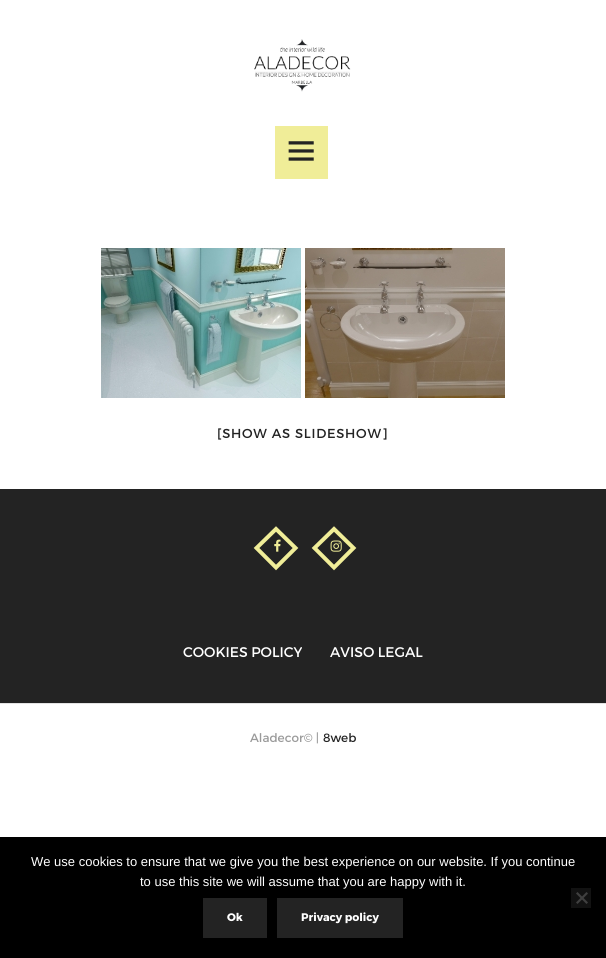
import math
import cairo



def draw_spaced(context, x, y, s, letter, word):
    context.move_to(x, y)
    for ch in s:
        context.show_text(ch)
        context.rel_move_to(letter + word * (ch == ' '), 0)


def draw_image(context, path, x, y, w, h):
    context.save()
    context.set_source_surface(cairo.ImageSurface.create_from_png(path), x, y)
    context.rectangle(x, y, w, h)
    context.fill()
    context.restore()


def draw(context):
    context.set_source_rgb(1, 1, 1)
    context.paint()
    draw_image(context, "images/1.png", 254, 39, 97, 53)
    context.set_source_rgb(240 / 255, 237 / 255, 152 / 255)
    context.rectangle(275, 126, 53, 53)
    context.fill()
    draw_image(context, "images/2.png", 288, 141, 26, 20)
    draw_image(context, "images/3.png", 101, 248, 200, 150)
    draw_image(context, "images/4.png", 305, 248, 200, 150)
    context.set_source_rgb(35 / 255, 35 / 255, 35 / 255)
    context.rectangle(0, 489, 606, 214)
    context.fill()
    context.new_path()
    context.move_to(276, 529)
    context.line_to(295.5, 548)
    context.line_to(276, 567.5)
    context.line_to(256.5, 548)
    context.close_path()
    context.set_source_rgb(240 / 255, 237 / 255, 152 / 255)
    context.set_line_width(4)
    context.stroke()
    draw_image(context, "images/5.png", 274, 539, 7, 13)
    context.new_path()
    context.move_to(334, 529)
    context.line_to(353.5, 548)
    context.line_to(334, 567.5)
    context.line_to(314.5, 548)
    context.close_path()
    context.stroke()
    draw_image(context, "images/6.png", 330, 540, 12, 12)
    context.set_source_rgb(227 / 255, 227 / 255, 227 / 255)
    context.rectangle(0, 703, 606, 1)
    context.fill()
    context.set_source_rgb(0, 0, 0)
    context.rectangle(0, 837, 606, 121)
    context.fill()
    context.set_source_rgb(18 / 255, 18 / 255, 18 / 255)
    context.rectangle(571, 888, 20, 20)
    context.fill()
    context.set_source_rgb(64 / 255, 64 / 255, 64 / 255)
    context.new_path()
    context.move_to(586.5, 892)
    context.line_to(588, 893.5)
    context.line_to(577.5, 904)
    context.line_to(576, 902.5)
    context.close_path()
    context.fill()
    context.new_path()
    context.move_to(576, 893.5)
    context.line_to(577.5, 892)
    context.line_to(588, 902.5)
    context.line_to(586.5, 904)
    context.close_path()
    context.fill()
    context.set_source_rgb(35 / 255, 35 / 255, 35 / 255)
    context.rectangle(203, 898, 64, 40)
    context.fill()
    context.rectangle(277, 898, 126, 40)
    context.fill()
    context.select_font_face("Montserrat")
    context.set_font_size(13)
    draw_spaced(context, 217, 438, "[SHOW AS SLIDESHOW]", 0.75, 0)
    context.set_font_size(14)
    context.set_source_rgb(1, 1, 1)
    context.move_to(183, 657)
    context.show_text("COOKIES POLICY")
    context.move_to(330, 657)
    context.show_text("AVISO LEGAL")
    context.set_font_size(12)
    context.set_source_rgb(154 / 255, 154 / 255, 154 / 255)
    context.move_to(250, 742)
    context.show_text("Aladecor© |")
    context.set_source_rgb(35 / 255, 35 / 255, 35 / 255)
    context.move_to(323, 742)
    context.show_text("8web")
    context.select_font_face("Liberation Sans")
    context.set_font_size(13)
    context.set_source_rgb(1, 1, 1)
    context.move_to(31, 866)
    context.show_text("We use cookies to ensure that we give you the best experience on our website. If you continue")
    context.move_to(140, 886)
    context.show_text("to use this site we will assume that you are happy with it.")
    context.select_font_face("Montserrat", cairo.FontSlant.NORMAL, cairo.FontWeight.BOLD)
    context.set_font_size(11)
    context.move_to(227, 921)
    context.show_text("Ok")
    context.move_to(301, 921)
    context.show_text("Privacy policy")


surface = cairo.ImageSurface(cairo.Format.RGB24, 606, 958)
context = cairo.Context(surface)
options = cairo.FontOptions()
options.set_hint_metrics(cairo.HintMetrics.OFF)
options.set_hint_style(cairo.HintStyle.NONE)
context.set_font_options(options)
context.set_miter_limit(4)
draw(context)
surface.write_to_png("out.png")
